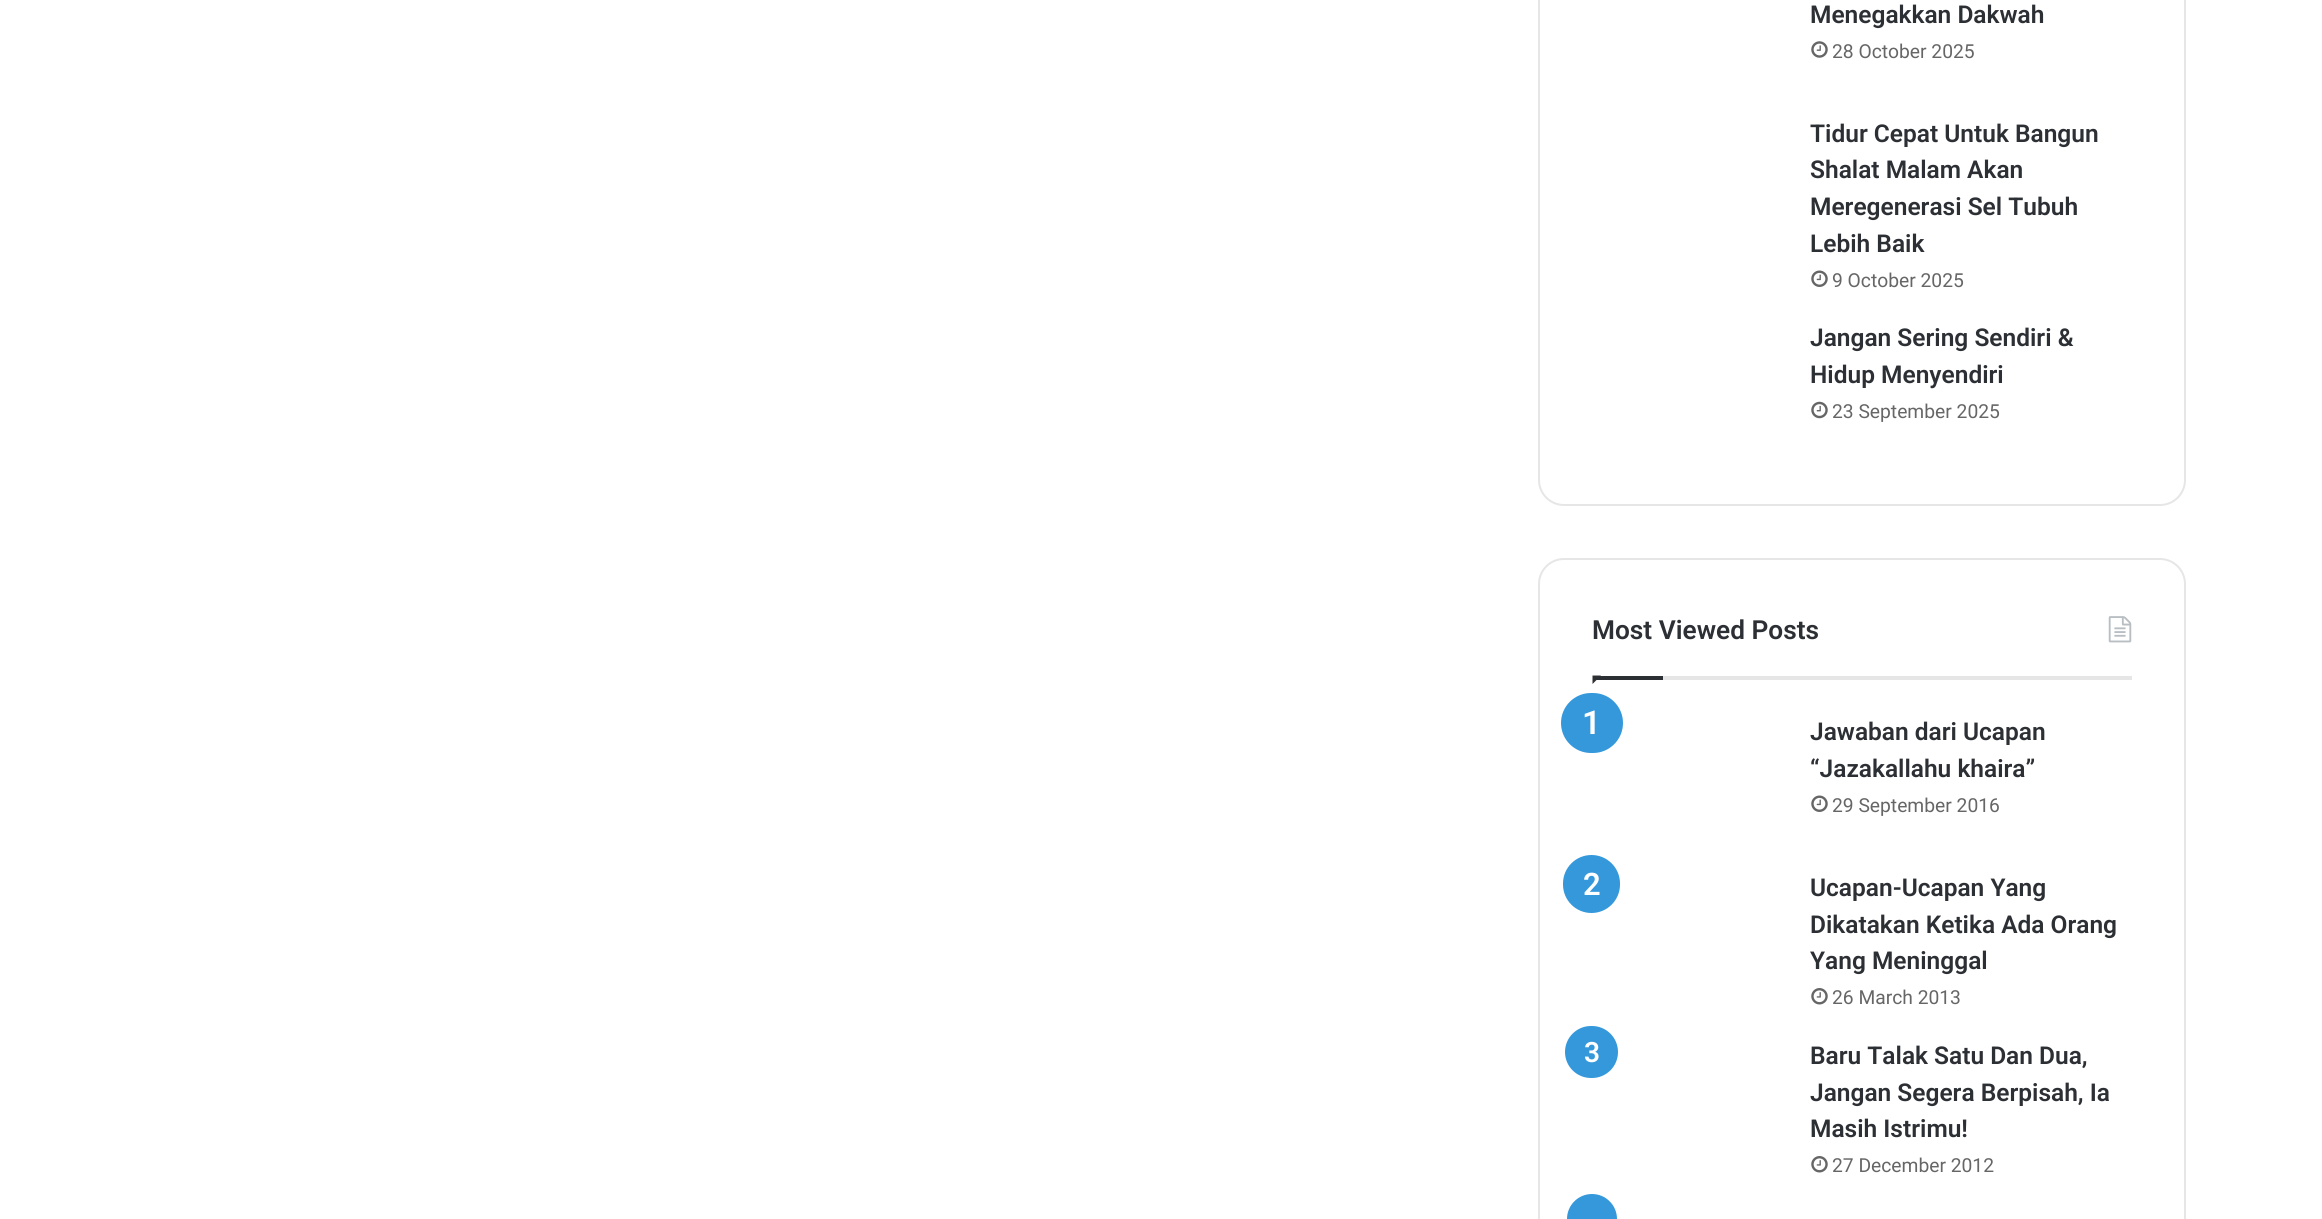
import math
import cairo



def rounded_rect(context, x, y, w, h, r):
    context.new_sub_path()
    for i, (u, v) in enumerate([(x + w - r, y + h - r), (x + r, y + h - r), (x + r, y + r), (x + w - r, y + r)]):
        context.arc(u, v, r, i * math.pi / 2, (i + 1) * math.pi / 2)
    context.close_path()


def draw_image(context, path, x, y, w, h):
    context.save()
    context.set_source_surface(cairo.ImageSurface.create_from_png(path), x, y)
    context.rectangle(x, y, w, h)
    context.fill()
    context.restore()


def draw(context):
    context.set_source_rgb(1, 1, 1)
    context.paint()
    rounded_rect(context, 1539, -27, 646, 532, 25)
    context.set_source_rgb(230 / 255, 230 / 255, 230 / 255)
    context.stroke()
    draw_image(context, "images/1.png", 1811, 41, 17, 17)
    draw_image(context, "images/2.png", 1811, 270, 17, 17)
    draw_image(context, "images/3.png", 1811, 401, 17, 18)
    rounded_rect(context, 1539, 559, 646, 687, 25)
    context.stroke()
    context.rectangle(1663, 676, 469, 4)
    context.fill()
    draw_image(context, "images/4.png", 2108, 616, 24, 27)
    context.set_source_rgb(44 / 255, 47 / 255, 52 / 255)
    context.new_path()
    context.move_to(1592.5, 675.5)
    context.line_to(1601, 675.5)
    context.line_to(1592.5, 684)
    context.close_path()
    context.fill()
    context.rectangle(1593, 676, 70, 4)
    context.fill()
    context.set_source_rgb(52 / 255, 152 / 255, 219 / 255)
    rounded_rect(context, 1558.5, 690.5, 67, 65, 32.5)
    context.fill_preserve()
    context.set_source_rgb(1, 1, 1)
    context.set_line_width(5)
    context.stroke()
    draw_image(context, "images/2.png", 1811, 795, 17, 17)
    context.set_source_rgb(52 / 255, 152 / 255, 219 / 255)
    rounded_rect(context, 1561, 853, 61, 62, 30.5)
    context.fill_preserve()
    context.set_source_rgb(1, 1, 1)
    context.set_line_width(4)
    context.stroke()
    draw_image(context, "images/5.png", 1811, 988, 17, 17)
    context.set_source_rgb(52 / 255, 152 / 255, 219 / 255)
    rounded_rect(context, 1563, 1024, 57, 56, 28)
    context.fill_preserve()
    context.set_source_rgb(1, 1, 1)
    context.stroke()
    draw_image(context, "images/5.png", 1811, 1156, 17, 17)
    context.set_source_rgb(52 / 255, 152 / 255, 219 / 255)
    context.arc(1592, 1219, 27, 0, 2 * math.pi)
    context.fill_preserve()
    context.set_source_rgb(1, 1, 1)
    context.stroke()
    context.select_font_face("Roboto SemiBold")
    context.set_font_size(24.5)
    context.set_source_rgb(44 / 255, 47 / 255, 52 / 255)
    context.move_to(1810, 23)
    context.show_text("Menegakkan Dakwah")
    context.select_font_face("Roboto")
    context.set_font_size(19.25)
    context.set_source_rgb(102 / 255, 102 / 255, 102 / 255)
    context.move_to(1832, 58)
    context.show_text("28 October 2025")
    context.select_font_face("Roboto SemiBold")
    context.set_font_size(24.5)
    context.set_source_rgb(44 / 255, 47 / 255, 52 / 255)
    context.move_to(1810, 142)
    context.show_text("Tidur Cepat Untuk Bangun")
    context.move_to(1810, 178)
    context.show_text("Shalat Malam Akan")
    context.move_to(1810, 215)
    context.show_text("Meregenerasi Sel Tubuh")
    context.move_to(1810, 252)
    context.show_text("Lebih Baik")
    context.select_font_face("Roboto")
    context.set_font_size(19.25)
    context.set_source_rgb(102 / 255, 102 / 255, 102 / 255)
    context.move_to(1832, 287)
    context.show_text("9 October 2025")
    context.select_font_face("Roboto SemiBold")
    context.set_font_size(24.5)
    context.set_source_rgb(44 / 255, 47 / 255, 52 / 255)
    context.move_to(1810, 346)
    context.show_text("Jangan Sering Sendiri &")
    context.move_to(1810, 383)
    context.show_text("Hidup Menyendiri")
    context.select_font_face("Roboto")
    context.set_font_size(19.25)
    context.set_source_rgb(102 / 255, 102 / 255, 102 / 255)
    context.move_to(1832, 418)
    context.show_text("23 September 2025")
    context.select_font_face("Roboto SemiBold")
    context.set_font_size(26.25)
    context.set_source_rgb(44 / 255, 47 / 255, 52 / 255)
    context.move_to(1592, 639)
    context.show_text("Most Viewed Posts")
    context.set_font_size(33)
    context.set_source_rgb(1, 1, 1)
    context.move_to(1582, 734)
    context.show_text("1")
    context.set_font_size(24.5)
    context.set_source_rgb(44 / 255, 47 / 255, 52 / 255)
    context.move_to(1810, 740)
    context.show_text("Jawaban dari Ucapan")
    context.move_to(1810, 777)
    context.show_text("“Jazakallahu khaira”")
    context.select_font_face("Roboto")
    context.set_font_size(19.25)
    context.set_source_rgb(102 / 255, 102 / 255, 102 / 255)
    context.move_to(1832, 812)
    context.show_text("29 September 2016")
    context.select_font_face("Roboto SemiBold")
    context.set_font_size(31)
    context.set_source_rgb(1, 1, 1)
    context.move_to(1583, 895)
    context.show_text("2")
    context.set_font_size(24.5)
    context.set_source_rgb(44 / 255, 47 / 255, 52 / 255)
    context.move_to(1810, 896)
    context.show_text("Ucapan-Ucapan Yang")
    context.move_to(1810, 933)
    context.show_text("Dikatakan Ketika Ada Orang")
    context.move_to(1810, 969)
    context.show_text("Yang Meninggal")
    context.select_font_face("Roboto")
    context.set_font_size(19.25)
    context.set_source_rgb(102 / 255, 102 / 255, 102 / 255)
    context.move_to(1832, 1004)
    context.show_text("26 March 2013")
    context.select_font_face("Roboto SemiBold")
    context.set_font_size(28)
    context.set_source_rgb(1, 1, 1)
    context.move_to(1584, 1062)
    context.show_text("3")
    context.set_font_size(24.5)
    context.set_source_rgb(44 / 255, 47 / 255, 52 / 255)
    context.move_to(1810, 1064)
    context.show_text("Baru Talak Satu Dan Dua,")
    context.move_to(1810, 1101)
    context.show_text("Jangan Segera Berpisah, Ia")
    context.move_to(1810, 1137)
    context.show_text("Masih Istrimu!")
    context.select_font_face("Roboto")
    context.set_font_size(19.25)
    context.set_source_rgb(102 / 255, 102 / 255, 102 / 255)
    context.move_to(1832, 1172)
    context.show_text("27 December 2012")


surface = cairo.ImageSurface(cairo.Format.RGB24, 2322, 1219)
context = cairo.Context(surface)
options = cairo.FontOptions()
options.set_hint_metrics(cairo.HintMetrics.OFF)
options.set_hint_style(cairo.HintStyle.NONE)
context.set_font_options(options)
context.set_miter_limit(4)
draw(context)
surface.write_to_png("out.png")
